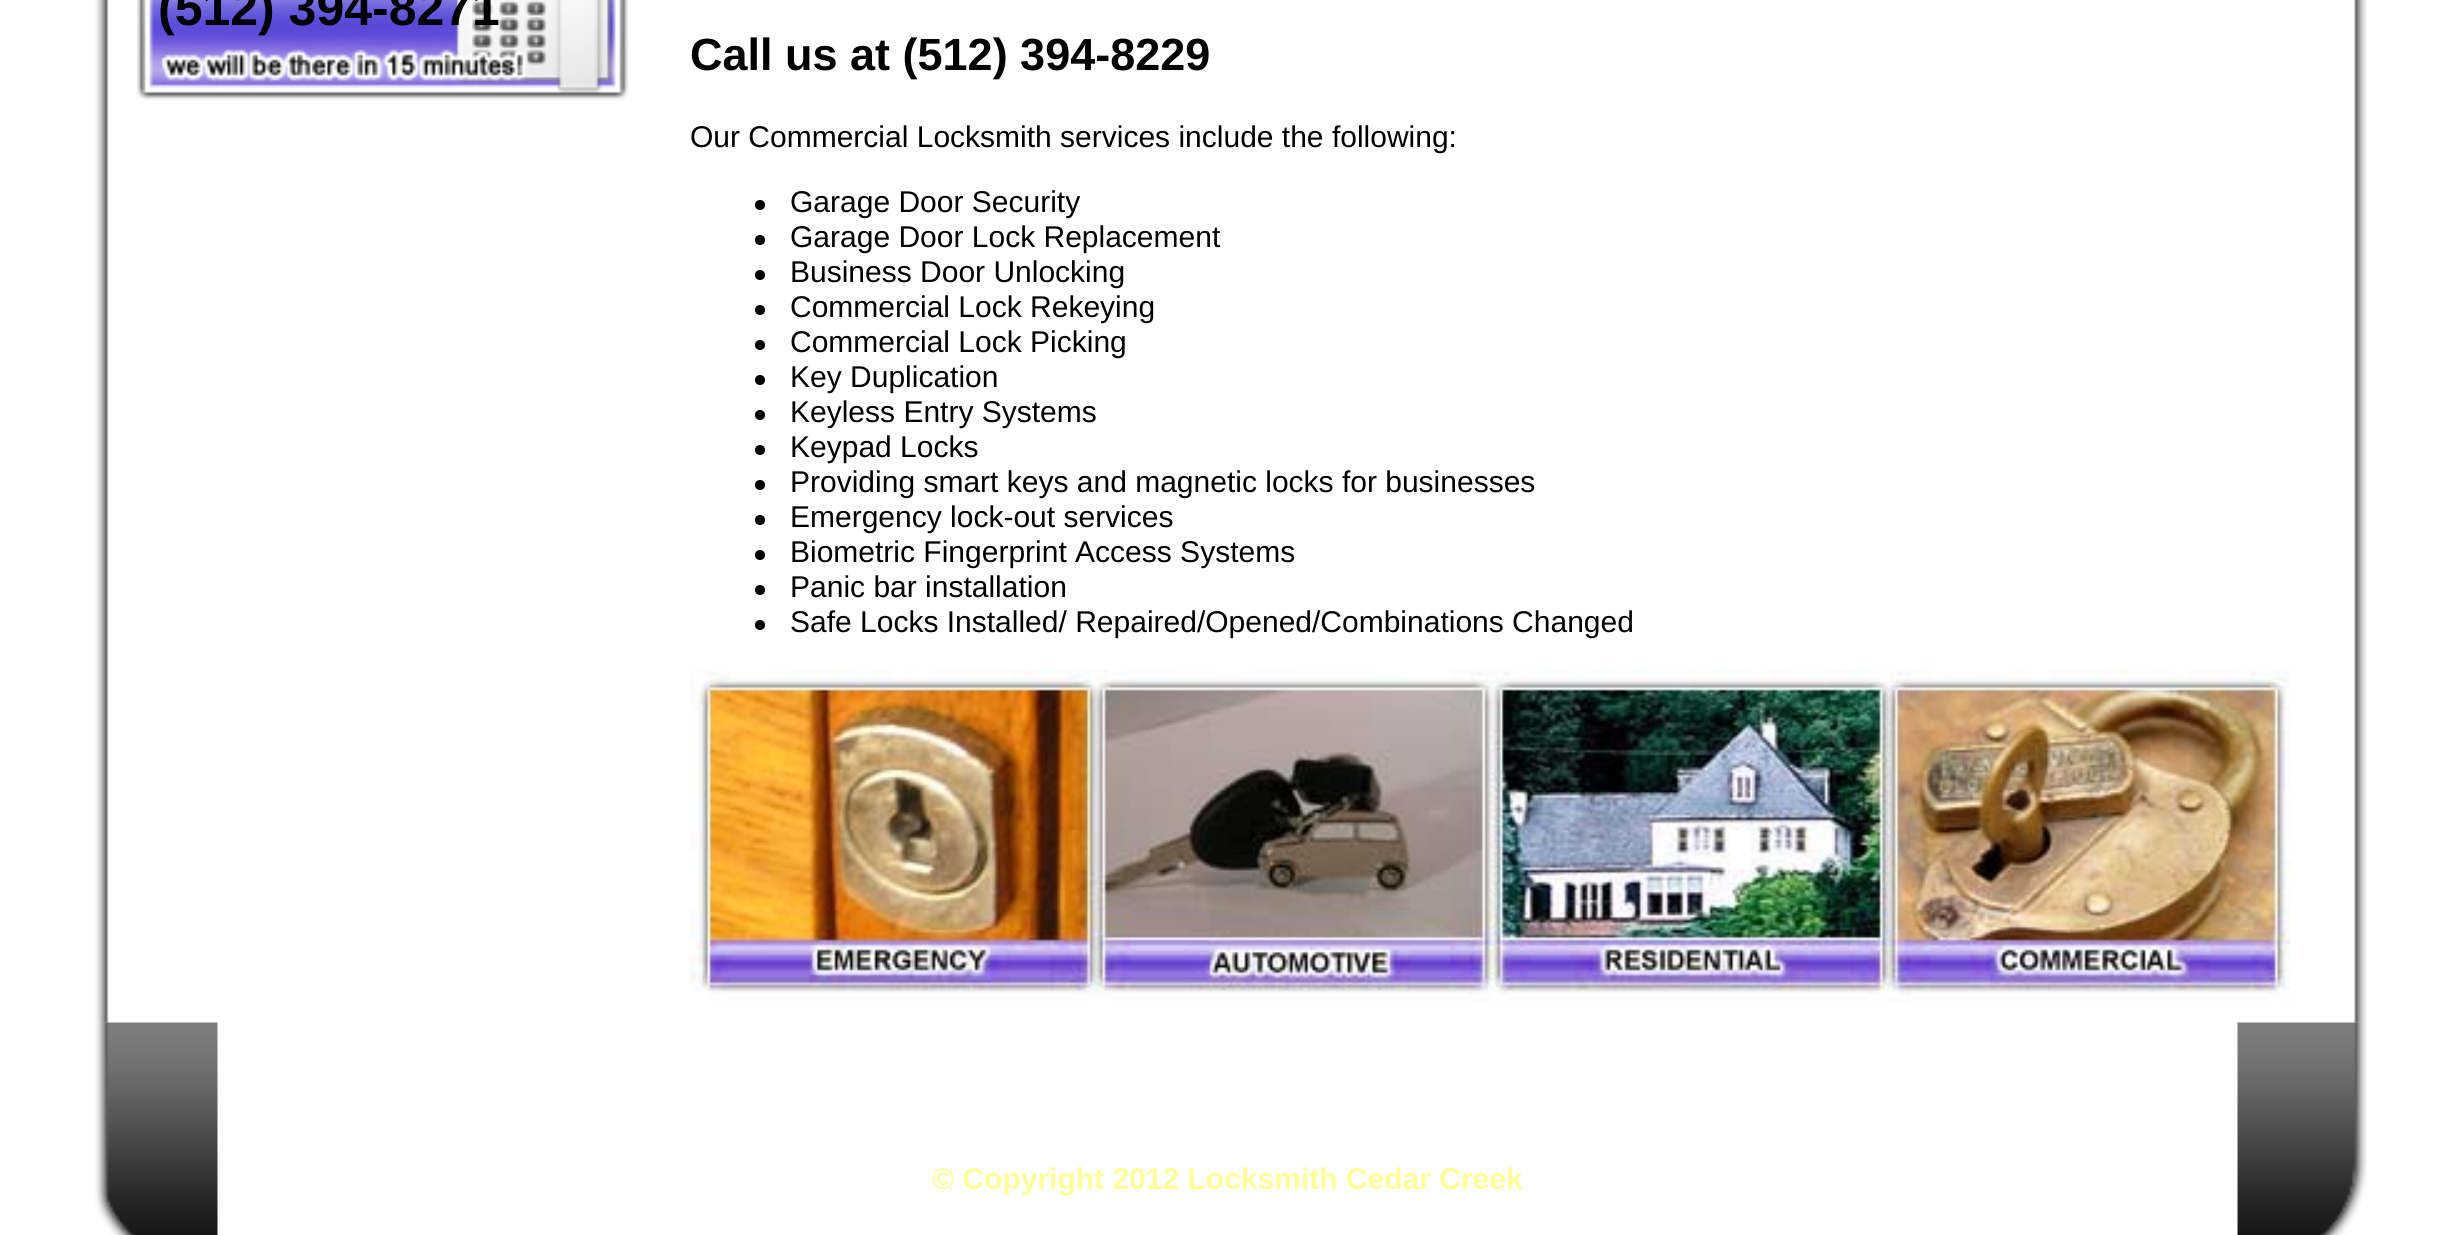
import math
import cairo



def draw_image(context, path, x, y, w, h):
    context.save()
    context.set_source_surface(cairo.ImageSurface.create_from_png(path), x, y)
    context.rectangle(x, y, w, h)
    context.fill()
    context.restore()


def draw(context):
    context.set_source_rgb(1, 1, 1)
    context.paint()
    draw_image(context, "images/1.png", 95, 0, 2272, 1023)
    draw_image(context, "images/2.png", 136, 0, 493, 101)
    context.set_source_rgb(0, 0, 0)
    context.arc(760, 205, 5, 0, 2 * math.pi)
    context.fill()
    context.arc(760, 240, 5, 0, 2 * math.pi)
    context.fill()
    context.arc(760, 275, 5, 0, 2 * math.pi)
    context.fill()
    context.arc(760, 310, 5, 0, 2 * math.pi)
    context.fill()
    context.arc(760, 345, 5, 0, 2 * math.pi)
    context.fill()
    context.arc(760, 380, 5, 0, 2 * math.pi)
    context.fill()
    context.arc(760, 415, 5, 0, 2 * math.pi)
    context.fill()
    context.arc(760, 450, 5, 0, 2 * math.pi)
    context.fill()
    context.arc(760, 485, 5, 0, 2 * math.pi)
    context.fill()
    context.arc(760, 520, 5, 0, 2 * math.pi)
    context.fill()
    context.arc(760, 555, 5, 0, 2 * math.pi)
    context.fill()
    context.arc(760, 590, 5, 0, 2 * math.pi)
    context.fill()
    context.arc(760, 625, 5, 0, 2 * math.pi)
    context.fill()
    draw_image(context, "images/3.png", 690, 670, 1601, 332)
    draw_image(context, "images/4.png", 95, 1022, 123, 213)
    draw_image(context, "images/5.png", 2237, 1022, 130, 213)
    context.select_font_face("Liberation Sans", cairo.FontSlant.NORMAL, cairo.FontWeight.BOLD)
    context.set_font_size(50)
    context.move_to(158, 25)
    context.show_text("(512) 394-8271")
    context.set_font_size(45)
    context.move_to(690, 70)
    context.show_text("Call us at (512) 394-8229")
    context.select_font_face("Liberation Sans")
    context.set_font_size(30)
    context.move_to(690, 147)
    context.show_text("Our Commercial Locksmith services include the following:")
    context.move_to(790, 212)
    context.show_text("Garage Door Security")
    context.move_to(790, 247)
    context.show_text("Garage Door Lock Replacement")
    context.move_to(790, 282)
    context.show_text("Business Door Unlocking")
    context.move_to(790, 317)
    context.show_text("Commercial Lock Rekeying")
    context.move_to(790, 352)
    context.show_text("Commercial Lock Picking")
    context.move_to(790, 387)
    context.show_text("Key Duplication")
    context.move_to(790, 422)
    context.show_text("Keyless Entry Systems")
    context.move_to(790, 457)
    context.show_text("Keypad Locks")
    context.move_to(790, 492)
    context.show_text("Providing smart keys and magnetic locks for businesses")
    context.move_to(790, 527)
    context.show_text("Emergency lock-out services")
    context.move_to(790, 562)
    context.show_text("Biometric Fingerprint Access Systems")
    context.move_to(790, 597)
    context.show_text("Panic bar installation")
    context.move_to(790, 632)
    context.show_text("Safe Locks Installed/ Repaired/Opened/Combinations Changed")
    context.select_font_face("Liberation Sans", cairo.FontSlant.NORMAL, cairo.FontWeight.BOLD)
    context.set_source_rgb(1, 1, 153 / 255)
    context.move_to(932, 1189)
    context.show_text("© Copyright 2012 Locksmith Cedar Creek")


surface = cairo.ImageSurface(cairo.Format.RGB24, 2456, 1235)
context = cairo.Context(surface)
options = cairo.FontOptions()
options.set_hint_metrics(cairo.HintMetrics.OFF)
options.set_hint_style(cairo.HintStyle.NONE)
context.set_font_options(options)
context.set_miter_limit(4)
draw(context)
surface.write_to_png("out.png")
